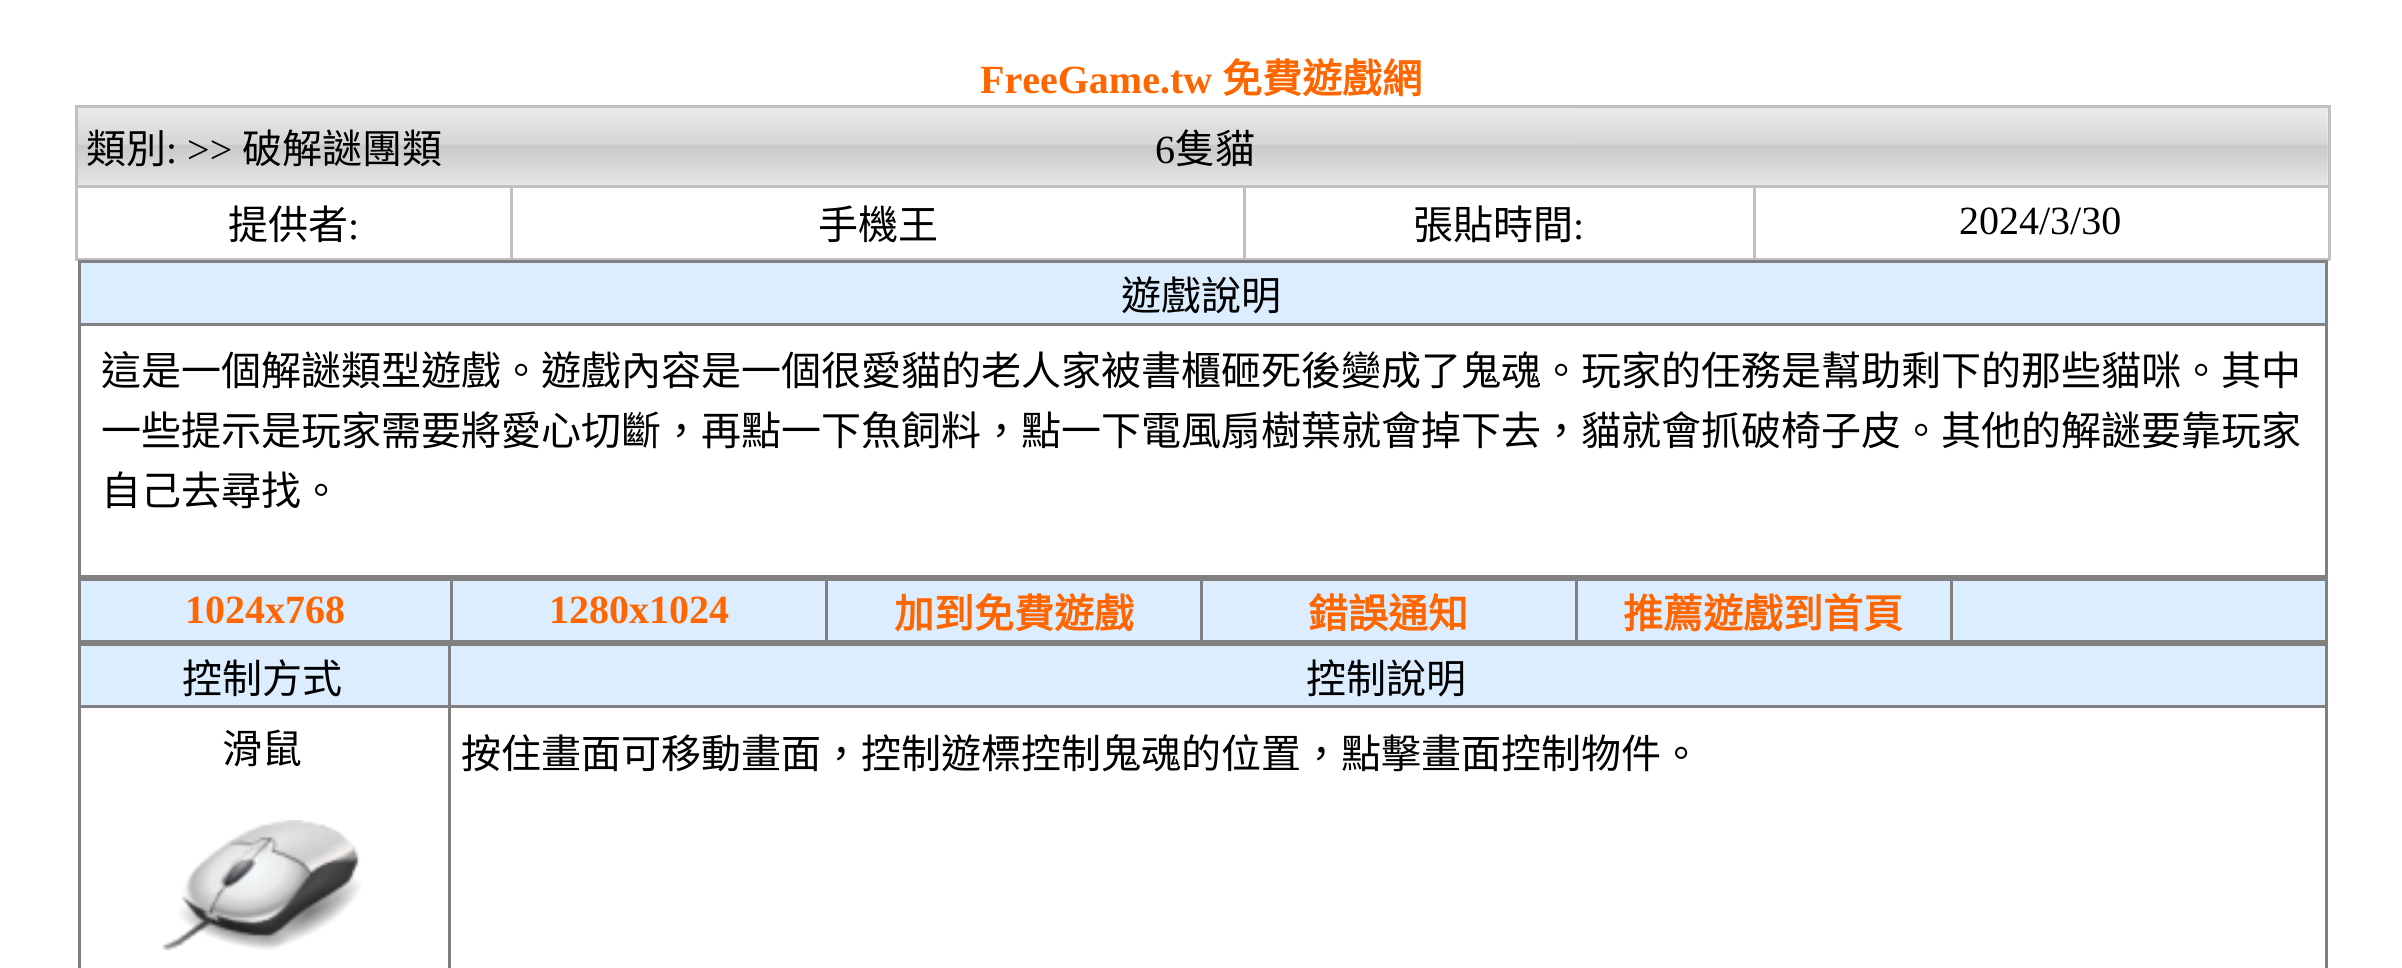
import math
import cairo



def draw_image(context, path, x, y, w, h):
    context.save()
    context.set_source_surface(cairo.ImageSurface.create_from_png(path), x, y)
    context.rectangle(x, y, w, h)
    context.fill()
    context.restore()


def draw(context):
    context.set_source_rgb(1, 1, 1)
    context.paint()
    context.set_source_rgb(192 / 255, 192 / 255, 192 / 255)
    context.rectangle(75, 105, 2255, 3)
    context.fill()
    context.rectangle(2328, 105, 3, 155)
    context.fill()
    context.rectangle(75, 258, 2255, 3)
    context.fill()
    context.rectangle(75, 105, 3, 155)
    context.fill()
    draw_image(context, "images/1.png", 78, 108, 2250, 77)
    draw_image(context, "images/2.png", 78, 143, 747, 2)
    draw_image(context, "images/3.png", 825, 143, 750, 2)
    draw_image(context, "images/4.png", 1575, 110, 753, 72)
    context.rectangle(1753, 185, 577, 3)
    context.fill()
    context.rectangle(1753, 185, 3, 75)
    context.fill()
    context.rectangle(1243, 185, 512, 3)
    context.fill()
    context.rectangle(1243, 185, 3, 75)
    context.fill()
    context.rectangle(510, 185, 735, 3)
    context.fill()
    context.rectangle(510, 185, 3, 75)
    context.fill()
    context.rectangle(75, 185, 438, 3)
    context.fill()
    context.set_source_rgb(128 / 255, 128 / 255, 128 / 255)
    context.rectangle(78, 260, 2250, 3)
    context.fill()
    context.rectangle(2325, 260, 3, 318)
    context.fill()
    context.rectangle(78, 575, 2250, 6)
    context.fill()
    context.rectangle(78, 260, 3, 318)
    context.fill()
    context.set_source_rgb(219 / 255, 237 / 255, 1)
    context.rectangle(81, 263, 2244, 60)
    context.fill()
    context.set_source_rgb(128 / 255, 128 / 255, 128 / 255)
    context.rectangle(78, 323, 2250, 3)
    context.fill()
    context.rectangle(2325, 578, 3, 65)
    context.fill()
    context.rectangle(78, 640, 2250, 6)
    context.fill()
    context.rectangle(78, 578, 3, 390)
    context.fill()
    context.set_source_rgb(219 / 255, 237 / 255, 1)
    context.rectangle(81, 581, 369, 59)
    context.fill()
    context.rectangle(453, 581, 372, 59)
    context.fill()
    context.set_source_rgb(128 / 255, 128 / 255, 128 / 255)
    context.rectangle(450, 578, 3, 65)
    context.fill()
    context.set_source_rgb(219 / 255, 237 / 255, 1)
    context.rectangle(828, 581, 372, 59)
    context.fill()
    context.set_source_rgb(128 / 255, 128 / 255, 128 / 255)
    context.rectangle(825, 578, 3, 65)
    context.fill()
    context.set_source_rgb(219 / 255, 237 / 255, 1)
    context.rectangle(1203, 581, 372, 59)
    context.fill()
    context.set_source_rgb(128 / 255, 128 / 255, 128 / 255)
    context.rectangle(1200, 578, 3, 65)
    context.fill()
    context.set_source_rgb(219 / 255, 237 / 255, 1)
    context.rectangle(1578, 581, 372, 59)
    context.fill()
    context.set_source_rgb(128 / 255, 128 / 255, 128 / 255)
    context.rectangle(1575, 578, 3, 65)
    context.fill()
    context.set_source_rgb(219 / 255, 237 / 255, 1)
    context.rectangle(1953, 581, 372, 59)
    context.fill()
    context.set_source_rgb(128 / 255, 128 / 255, 128 / 255)
    context.rectangle(1950, 578, 3, 65)
    context.fill()
    context.rectangle(2325, 643, 3, 325)
    context.fill()
    context.set_source_rgb(219 / 255, 237 / 255, 1)
    context.rectangle(81, 646, 367, 59)
    context.fill()
    context.rectangle(451, 646, 1874, 59)
    context.fill()
    context.set_source_rgb(128 / 255, 128 / 255, 128 / 255)
    context.rectangle(448, 705, 1880, 3)
    context.fill()
    context.rectangle(448, 705, 3, 263)
    context.fill()
    context.rectangle(78, 705, 372, 3)
    context.fill()
    context.rectangle(448, 643, 3, 65)
    context.fill()
    draw_image(context, "images/5.png", 162, 820, 200, 130)
    context.select_font_face("Liberation Serif", cairo.FontSlant.NORMAL, cairo.FontWeight.BOLD)
    context.set_font_size(40)
    context.set_source_rgb(1, 102 / 255, 0)
    context.move_to(980, 93)
    context.show_text("FreeGame.tw")
    context.select_font_face("Noto Sans CJK TC", cairo.FontSlant.NORMAL, cairo.FontWeight.BOLD)
    context.move_to(1222, 93)
    context.show_text("免費遊戲網")
    context.select_font_face("Noto Sans CJK TC")
    context.set_source_rgb(0, 0, 0)
    context.move_to(86, 163)
    context.show_text("類別")
    context.select_font_face("Liberation Serif")
    context.move_to(166, 163)
    context.show_text(": >>")
    context.select_font_face("Noto Sans CJK TC")
    context.move_to(242, 163)
    context.show_text("破解謎團類")
    context.select_font_face("Liberation Serif")
    context.move_to(1155, 163)
    context.show_text("6")
    context.select_font_face("Noto Sans CJK TC")
    context.move_to(1175, 163)
    context.show_text("隻貓")
    context.move_to(228, 239)
    context.show_text("提供者")
    context.select_font_face("Liberation Serif")
    context.move_to(348, 239)
    context.show_text(":")
    context.select_font_face("Noto Sans CJK TC")
    context.move_to(818, 239)
    context.show_text("手機王")
    context.move_to(1413, 239)
    context.show_text("張貼時間")
    context.select_font_face("Liberation Serif")
    context.move_to(1573, 239)
    context.show_text(":")
    context.move_to(1959, 234)
    context.show_text("2024/3/30")
    context.select_font_face("Noto Sans CJK TC")
    context.move_to(1121, 310)
    context.show_text("遊戲說明")
    context.move_to(101, 385)
    context.show_text("這是一個解謎類型遊戲。遊戲內容是一個很愛貓的老人家被書櫃砸死後變成了鬼魂。玩家的任務是幫助剩下的那些貓咪。其中")
    context.move_to(101, 445)
    context.show_text("一些提示是玩家需要將愛心切斷，再點一下魚飼料，點一下電風扇樹葉就會掉下去，貓就會抓破椅子皮。其他的解謎要靠玩家")
    context.move_to(101, 505)
    context.show_text("自己去尋找。")
    context.select_font_face("Liberation Serif", cairo.FontSlant.NORMAL, cairo.FontWeight.BOLD)
    context.set_source_rgb(1, 102 / 255, 0)
    context.move_to(185, 623)
    context.show_text("1024x768")
    context.move_to(549, 623)
    context.show_text("1280x1024")
    context.select_font_face("Noto Sans CJK TC", cairo.FontSlant.NORMAL, cairo.FontWeight.BOLD)
    context.move_to(894, 628)
    context.show_text("加到免費遊戲")
    context.move_to(1308, 628)
    context.show_text("錯誤通知")
    context.move_to(1623, 628)
    context.show_text("推薦遊戲到首頁")
    context.select_font_face("Noto Sans CJK TC")
    context.set_source_rgb(0, 0, 0)
    context.move_to(182, 693)
    context.show_text("控制方式")
    context.move_to(1306, 693)
    context.show_text("控制說明")
    context.move_to(222, 763)
    context.show_text("滑鼠")
    context.move_to(461, 768)
    context.show_text("按住畫面可移動畫面，控制遊標控制鬼魂的位置，點擊畫面控制物件。")


surface = cairo.ImageSurface(cairo.Format.RGB24, 2402, 968)
context = cairo.Context(surface)
options = cairo.FontOptions()
options.set_hint_metrics(cairo.HintMetrics.OFF)
options.set_hint_style(cairo.HintStyle.NONE)
context.set_font_options(options)
context.set_miter_limit(4)
draw(context)
surface.write_to_png("out.png")
